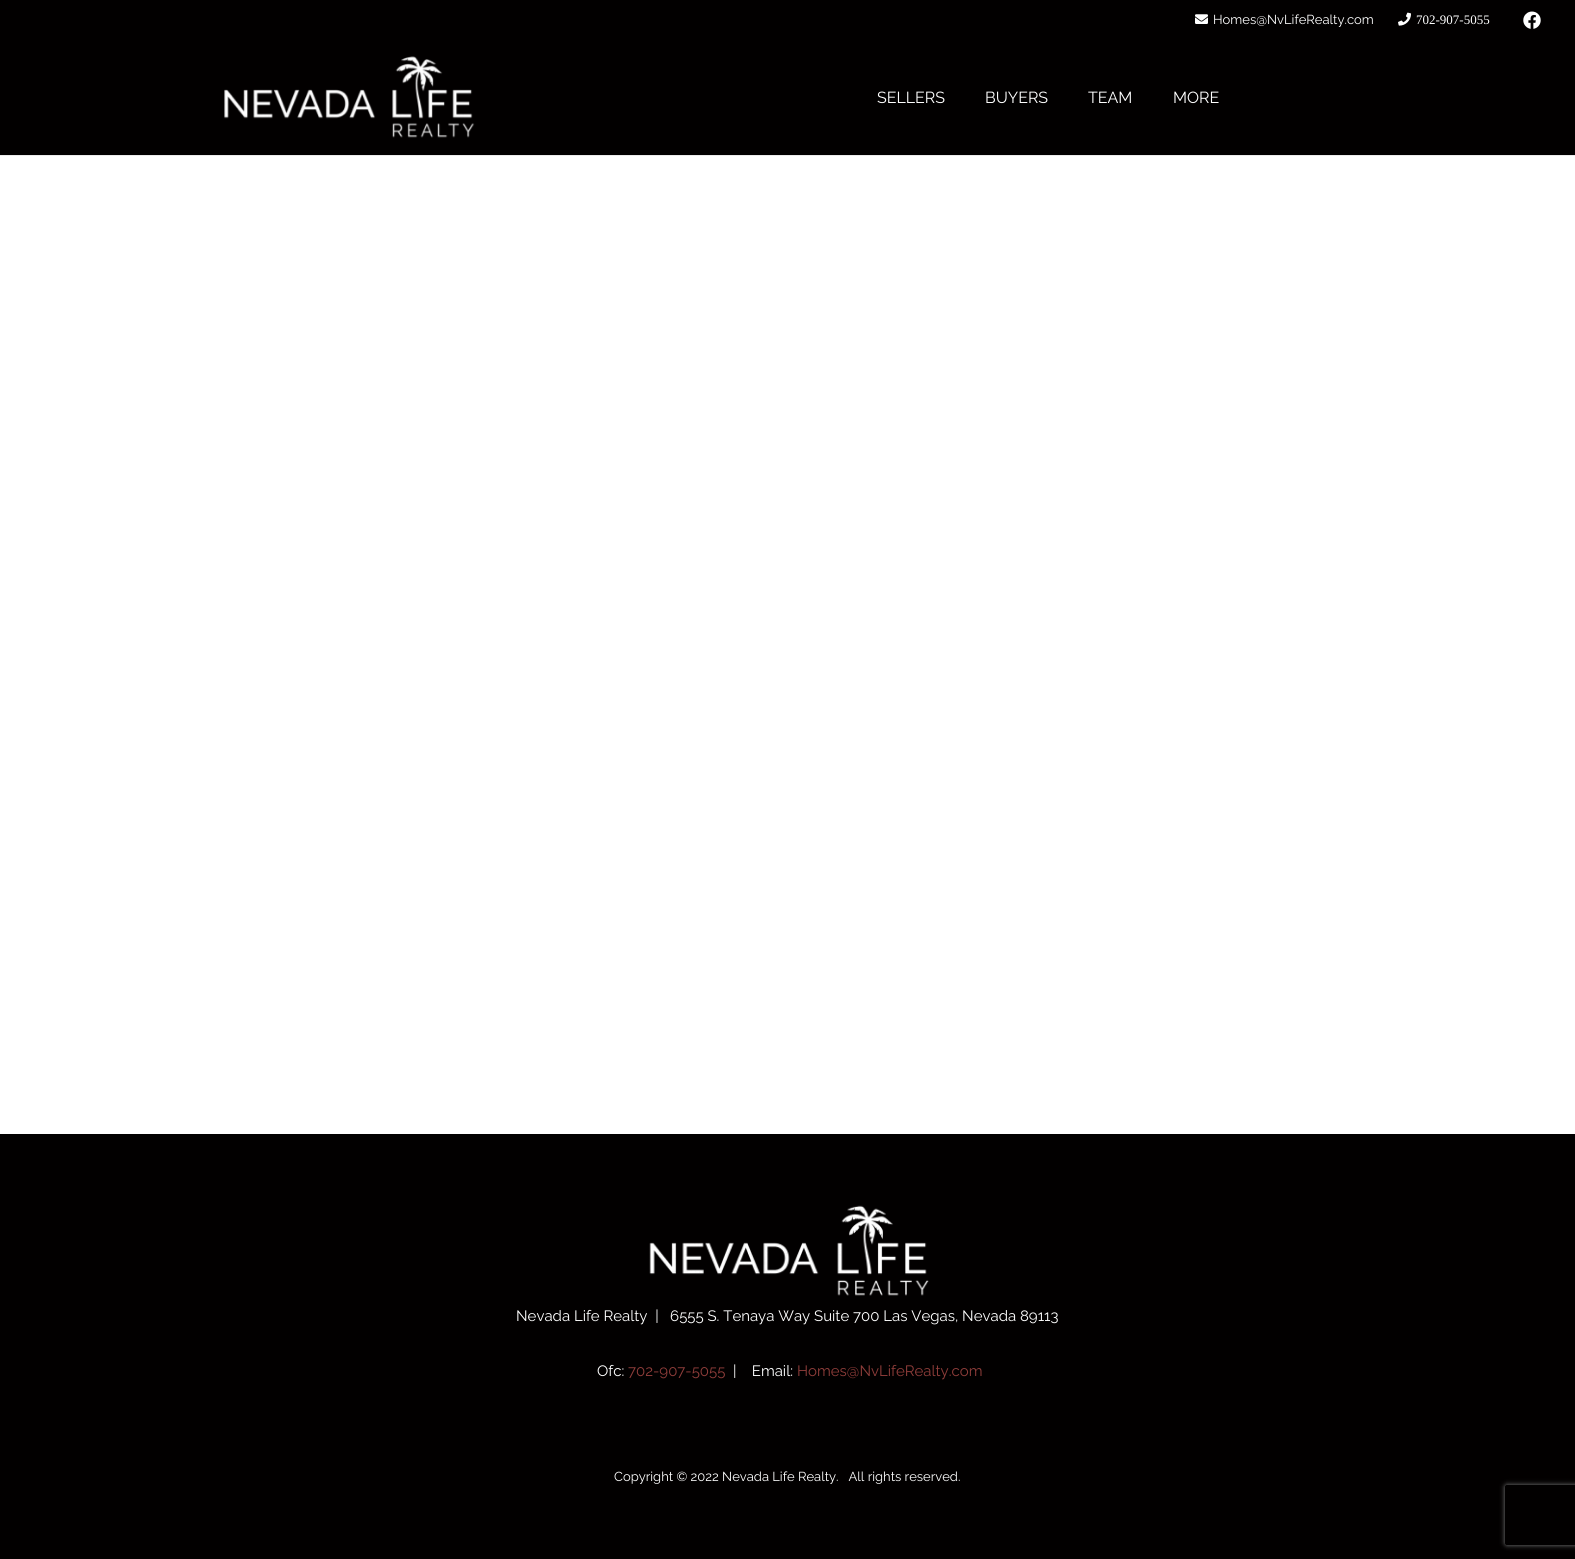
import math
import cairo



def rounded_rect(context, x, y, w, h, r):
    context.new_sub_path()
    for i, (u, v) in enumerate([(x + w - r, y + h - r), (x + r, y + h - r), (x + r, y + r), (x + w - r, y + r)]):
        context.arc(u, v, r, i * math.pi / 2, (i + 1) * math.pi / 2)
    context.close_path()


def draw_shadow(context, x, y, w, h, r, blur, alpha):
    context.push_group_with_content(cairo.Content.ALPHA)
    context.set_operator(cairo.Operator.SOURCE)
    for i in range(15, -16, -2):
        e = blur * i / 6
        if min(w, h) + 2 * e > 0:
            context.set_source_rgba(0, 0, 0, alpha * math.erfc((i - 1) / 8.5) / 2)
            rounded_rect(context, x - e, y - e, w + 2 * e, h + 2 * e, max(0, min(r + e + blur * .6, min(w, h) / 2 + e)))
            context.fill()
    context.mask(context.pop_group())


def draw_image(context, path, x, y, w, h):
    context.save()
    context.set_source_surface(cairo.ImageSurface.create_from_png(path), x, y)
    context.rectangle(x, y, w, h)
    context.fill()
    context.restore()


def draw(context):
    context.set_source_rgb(1, 1, 1)
    context.paint()
    context.set_source_rgb(2 / 255, 0, 0)
    context.rectangle(0, 0, 1575, 155)
    context.fill()
    draw_image(context, "images/1.png", 1195, 14, 13, 10)
    draw_image(context, "images/2.png", 1398, 12, 13, 14)
    draw_image(context, "images/3.png", 1523, 11, 18, 18)
    context.set_source_rgb(235 / 255, 235 / 255, 235 / 255)
    context.rectangle(0, 155, 1575, 1)
    context.fill()
    draw_image(context, "images/4.png", 224, 56, 251, 82)
    context.set_source_rgb(2 / 255, 0, 0)
    context.rectangle(0, 1134, 1575, 425)
    context.fill()
    draw_image(context, "images/5.png", 649, 1205, 280, 91)
    context.save()
    context.set_fill_rule(cairo.FillRule.EVEN_ODD)
    context.new_path()
    context.move_to(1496, 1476)
    context.line_to(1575, 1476)
    context.line_to(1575, 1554)
    context.line_to(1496, 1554)
    context.close_path()
    context.move_to(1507, 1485)
    context.line_to(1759, 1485)
    context.curve_to(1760, 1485, 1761, 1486, 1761, 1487)
    context.line_to(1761, 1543)
    context.curve_to(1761, 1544, 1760, 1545, 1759, 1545)
    context.line_to(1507, 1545)
    context.curve_to(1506, 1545, 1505, 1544, 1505, 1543)
    context.line_to(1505, 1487)
    context.curve_to(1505, 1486, 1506, 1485, 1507, 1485)
    context.close_path()
    context.clip()
    context.set_source_rgb(128 / 255, 128 / 255, 128 / 255)
    draw_shadow(context, 1505, 1485, 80, 60, 2, 2.5, 1)
    context.restore()
    context.select_font_face("Raleway")
    context.set_font_size(13)
    context.set_source_rgb(1, 1, 1)
    context.move_to(1213, 24)
    context.show_text("Homes@NvLifeRealty.com")
    context.select_font_face("Liberation Serif")
    context.move_to(1416, 24)
    context.show_text("702-907-5055")
    context.select_font_face("Raleway")
    context.set_font_size(16)
    context.move_to(877, 103)
    context.show_text("SELLERS")
    context.move_to(985, 103)
    context.show_text("BUYERS")
    context.move_to(1088, 103)
    context.show_text("TEAM")
    context.move_to(1173, 103)
    context.show_text("MORE")
    context.set_font_size(15)
    context.move_to(516, 1321)
    context.show_text("Nevada Life Realty  |   6555 S. Tenaya Way Suite 700 Las Vegas, Nevada 89113")
    context.move_to(597, 1376)
    context.show_text("Ofc:")
    context.set_source_rgb(144 / 255, 61 / 255, 58 / 255)
    context.move_to(628, 1376)
    context.show_text("702-907-5055")
    context.set_source_rgb(1, 1, 1)
    context.move_to(733, 1376)
    context.show_text("|    Email:")
    context.set_source_rgb(144 / 255, 61 / 255, 58 / 255)
    context.move_to(797, 1376)
    context.show_text("Homes@NvLifeRealty.com")
    context.set_font_size(13)
    context.set_source_rgb(1, 1, 1)
    context.move_to(614, 1481)
    context.show_text("Copyright © 2022 Nevada Life Realty.   All rights reserved.")


surface = cairo.ImageSurface(cairo.Format.RGB24, 1575, 1559)
context = cairo.Context(surface)
options = cairo.FontOptions()
options.set_hint_metrics(cairo.HintMetrics.OFF)
options.set_hint_style(cairo.HintStyle.NONE)
context.set_font_options(options)
context.set_miter_limit(4)
draw(context)
surface.write_to_png("out.png")
